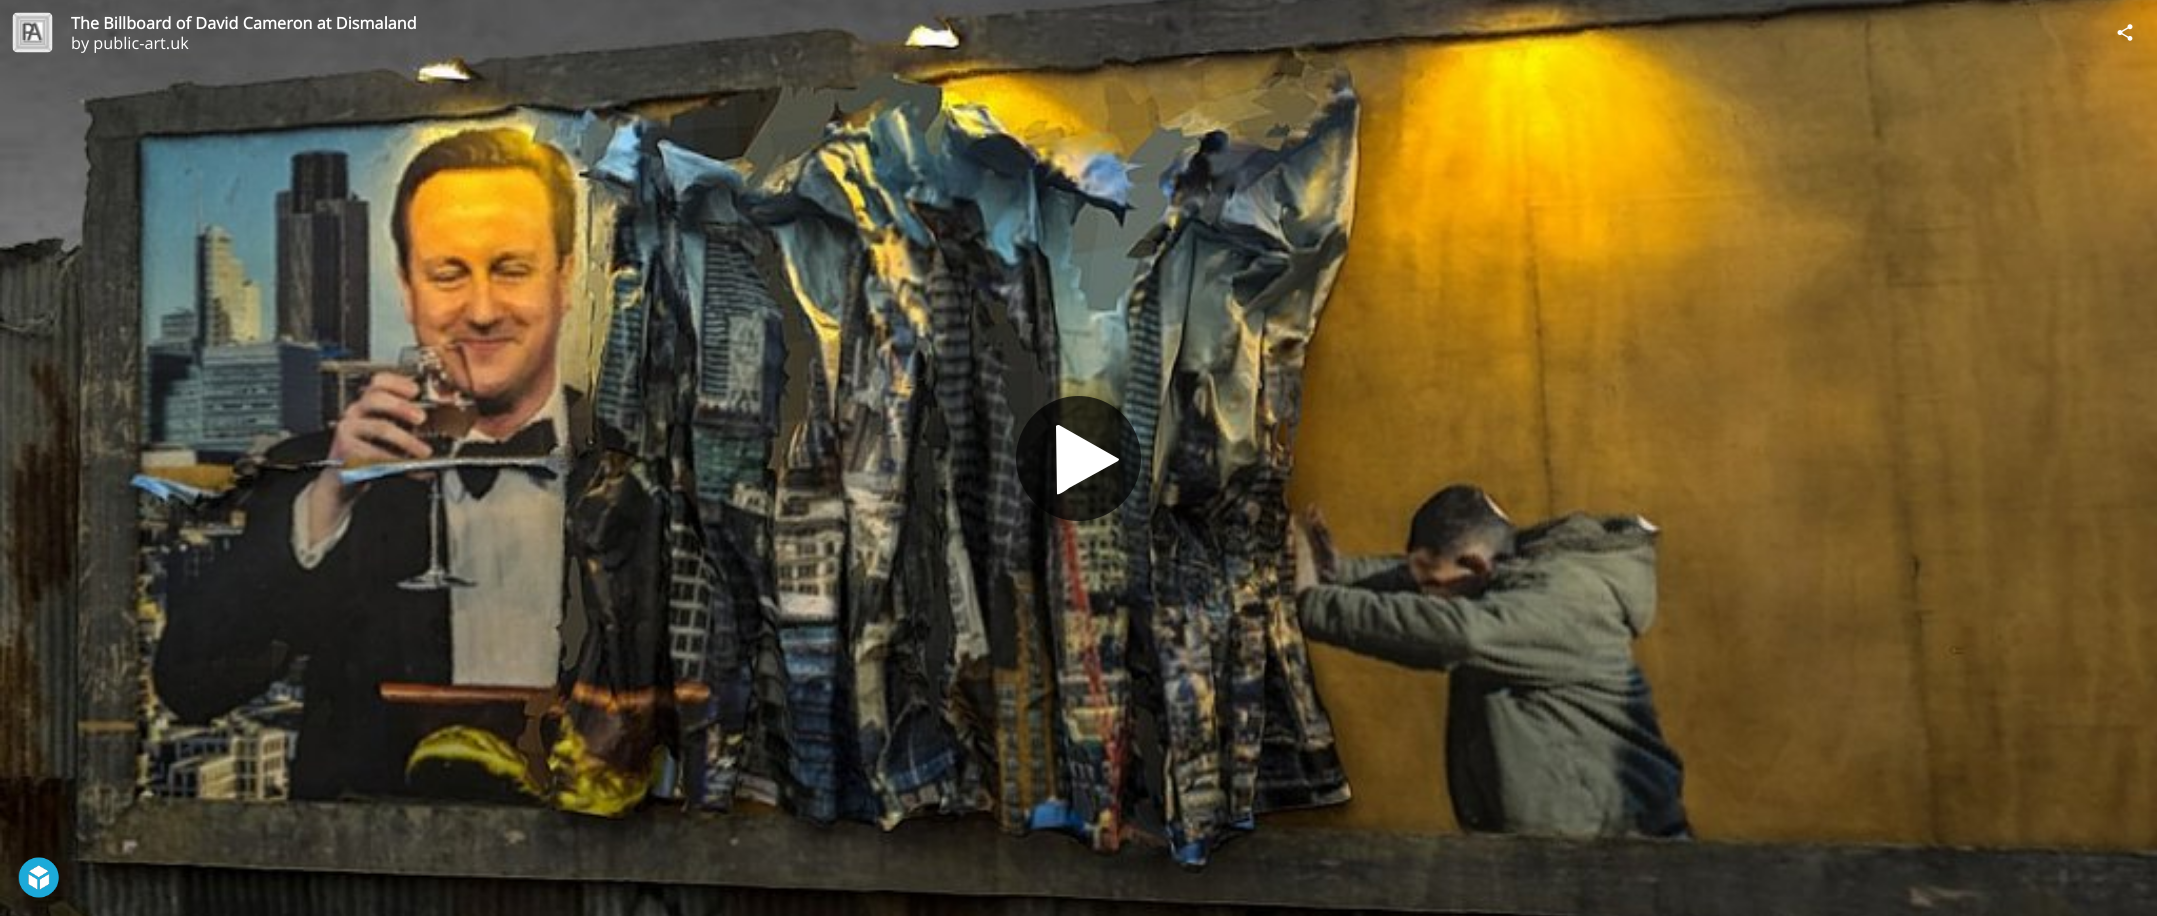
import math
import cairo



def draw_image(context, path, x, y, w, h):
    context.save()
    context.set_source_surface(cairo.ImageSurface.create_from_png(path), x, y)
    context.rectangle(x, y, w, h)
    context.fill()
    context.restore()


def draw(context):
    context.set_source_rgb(1, 1, 1)
    context.paint()
    draw_image(context, "images/1.png", 0, 0, 2157, 916)
    context.set_source_rgba(0, 0, 0, 0.7)
    context.arc(1078.5, 458.5, 62.5, 0, 2 * math.pi)
    context.fill()
    context.set_source_rgb(1, 1, 1)
    context.new_path()
    context.move_to(1118, 461)
    context.line_to(1069, 488)
    context.curve_to(1068, 489, 1058, 496, 1057, 494)
    context.line_to(1056, 426)
    context.curve_to(1057, 425, 1058, 425, 1059, 425)
    context.line_to(1119, 459)
    context.curve_to(1119, 459, 1119, 460, 1118, 461)
    context.close_path()
    context.fill()
    draw_image(context, "images/2.png", 18, 857, 41, 41)
    draw_image(context, "images/3.png", 12, 12, 41, 41)
    draw_image(context, "images/4.png", 2117, 24, 16, 17)
    context.select_font_face("Open Sans", cairo.FontSlant.NORMAL, cairo.FontWeight.BOLD)
    context.set_font_size(16.25)
    context.move_to(71, 29)
    context.show_text("The Billboard of David Cameron at Dismaland")
    context.select_font_face("Open Sans")
    context.move_to(71, 49)
    context.show_text("by public-art.uk")


surface = cairo.ImageSurface(cairo.Format.RGB24, 2157, 916)
context = cairo.Context(surface)
options = cairo.FontOptions()
options.set_hint_metrics(cairo.HintMetrics.OFF)
options.set_hint_style(cairo.HintStyle.NONE)
context.set_font_options(options)
context.set_miter_limit(4)
draw(context)
surface.write_to_png("out.png")
